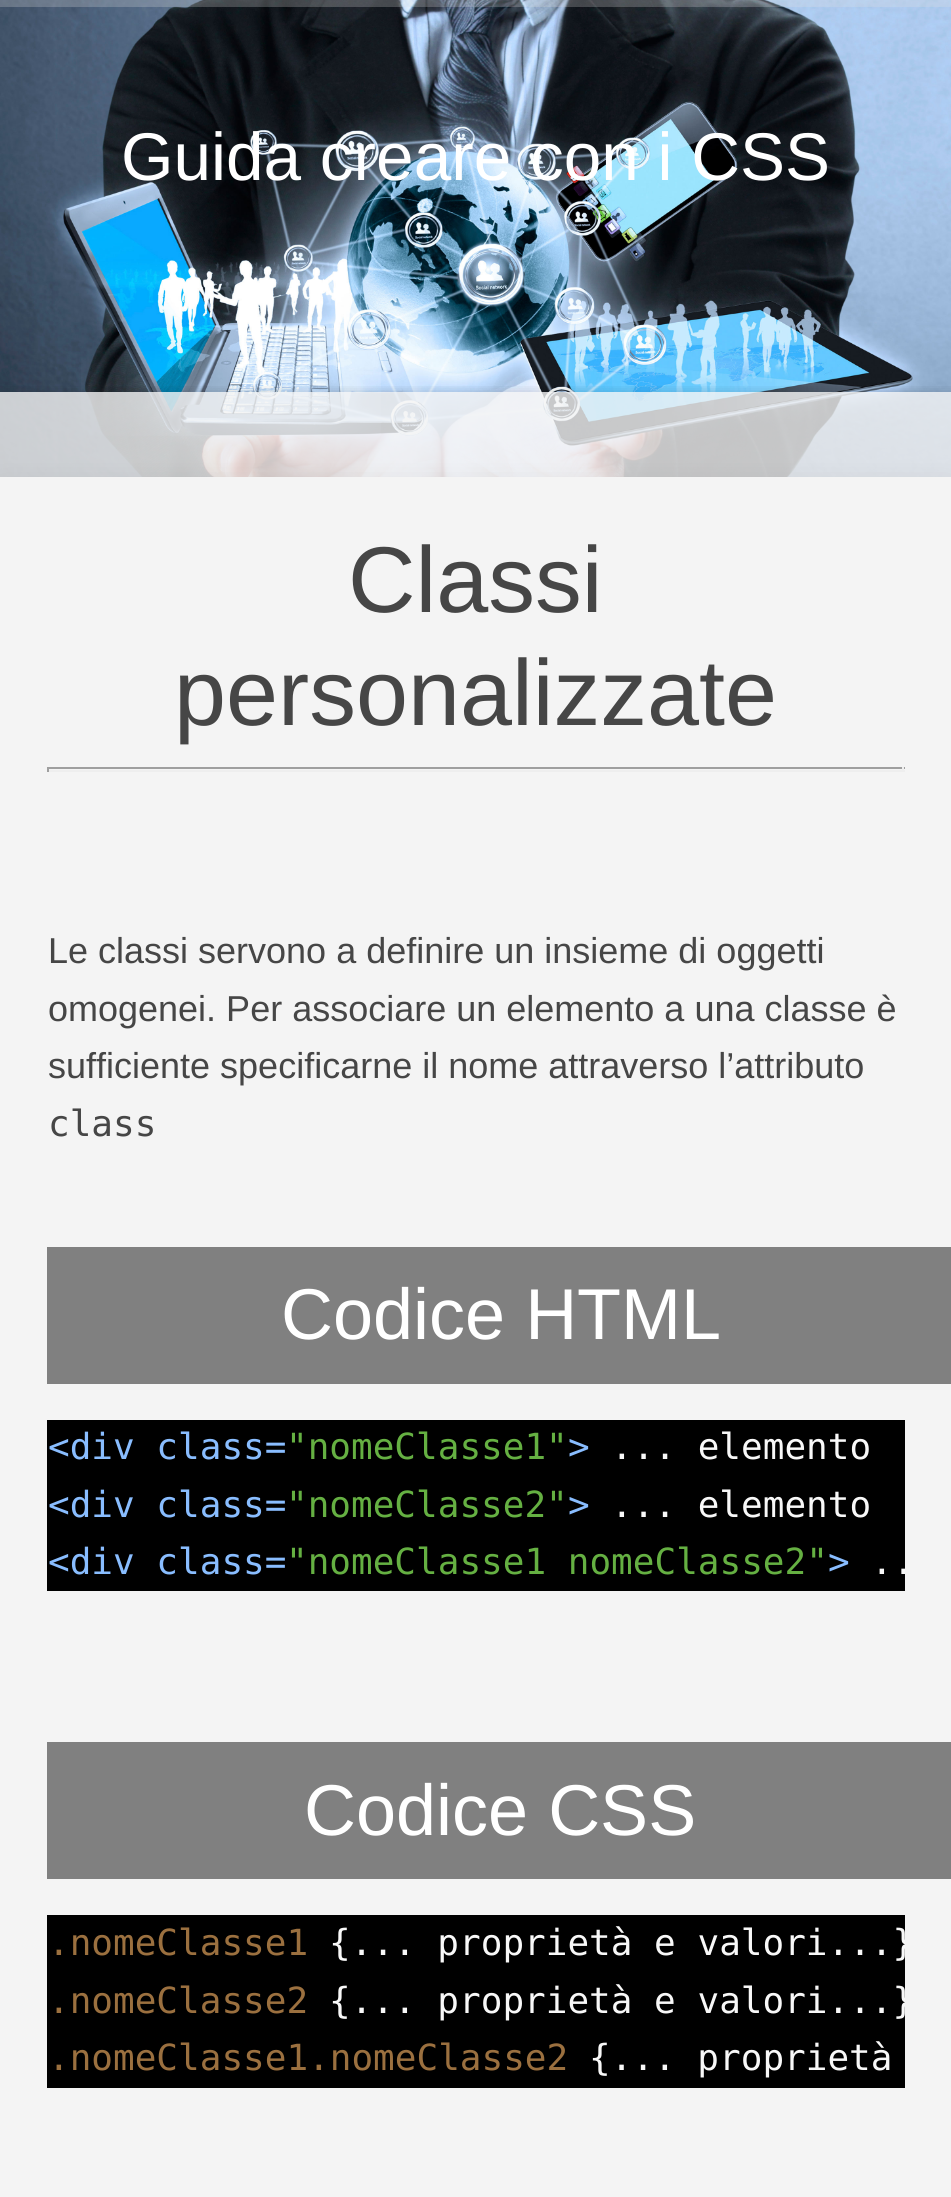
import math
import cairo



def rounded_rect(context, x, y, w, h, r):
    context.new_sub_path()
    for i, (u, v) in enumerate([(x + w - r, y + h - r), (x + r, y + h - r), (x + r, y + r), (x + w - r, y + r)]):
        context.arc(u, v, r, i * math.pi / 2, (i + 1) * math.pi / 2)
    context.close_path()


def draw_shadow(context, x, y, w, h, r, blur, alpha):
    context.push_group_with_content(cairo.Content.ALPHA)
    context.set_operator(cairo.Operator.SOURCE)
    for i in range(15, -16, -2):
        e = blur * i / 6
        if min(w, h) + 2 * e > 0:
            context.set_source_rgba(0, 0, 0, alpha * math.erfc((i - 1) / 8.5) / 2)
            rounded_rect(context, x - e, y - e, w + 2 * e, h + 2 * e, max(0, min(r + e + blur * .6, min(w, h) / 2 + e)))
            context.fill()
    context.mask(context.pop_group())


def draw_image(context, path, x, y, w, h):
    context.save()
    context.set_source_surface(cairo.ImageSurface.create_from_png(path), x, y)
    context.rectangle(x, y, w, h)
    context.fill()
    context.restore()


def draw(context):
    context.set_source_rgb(1, 1, 1)
    context.paint()
    draw_image(context, "images/1.png", 0, 0, 951, 477)
    context.set_source_rgba(226 / 255, 226 / 255, 226 / 255, 0.25)
    context.rectangle(0, 0, 951, 7)
    context.fill()
    context.save()
    context.rectangle(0, 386, 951, 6)
    context.clip()
    context.set_source_rgb(0, 0, 0)
    draw_shadow(context, 0, 396, 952, 198, 0, 7, 0.3)
    context.restore()
    context.set_source_rgba(244 / 255, 244 / 255, 244 / 255, 0.8)
    context.rectangle(0, 392, 951, 85)
    context.fill()
    context.set_source_rgb(0, 0, 0)
    draw_shadow(context, 0, 488, 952, 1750, 0, 13.5, 0.11)
    context.set_source_rgb(244 / 255, 244 / 255, 244 / 255)
    context.rectangle(0, 477, 951, 1720)
    context.fill()
    context.set_source_rgb(159 / 255, 159 / 255, 159 / 255)
    context.rectangle(47, 767, 858, 2)
    context.fill()
    context.set_source_rgb(238 / 255, 238 / 255, 238 / 255)
    context.rectangle(902, 767, 2, 5)
    context.fill()
    context.rectangle(47, 770, 858, 2)
    context.fill()
    context.set_source_rgb(159 / 255, 159 / 255, 159 / 255)
    context.rectangle(47, 767, 2, 5)
    context.fill()
    context.set_source_rgb(128 / 255, 128 / 255, 128 / 255)
    context.rectangle(47, 1247, 904, 137)
    context.fill()
    context.set_source_rgb(0, 0, 0)
    context.rectangle(47, 1420, 858, 171)
    context.fill()
    context.set_source_rgb(128 / 255, 128 / 255, 128 / 255)
    context.rectangle(47, 1742, 904, 137)
    context.fill()
    context.set_source_rgb(0, 0, 0)
    context.rectangle(47, 1915, 858, 173)
    context.fill()
    context.select_font_face("Liberation Sans")
    context.set_font_size(67.5)
    context.set_source_rgb(1, 1, 1)
    context.move_to(121, 180)
    context.show_text("Guida creare con i CSS")
    context.set_font_size(93.5)
    context.set_source_rgb(70 / 255, 70 / 255, 70 / 255)
    context.move_to(348, 612)
    context.show_text("Classi")
    context.move_to(174, 725)
    context.show_text("personalizzate")
    context.set_font_size(36)
    context.move_to(48, 963)
    context.show_text("Le classi servono a definire un insieme di oggetti")
    context.move_to(48, 1021)
    context.show_text("omogenei. Per associare un elemento a una classe è")
    context.move_to(48, 1078)
    context.show_text("sufficiente specificarne il nome attraverso l’attributo")
    context.select_font_face("DejaVu Sans Mono")
    context.move_to(48, 1136)
    context.show_text("class")
    context.select_font_face("Liberation Sans")
    context.set_font_size(72)
    context.set_source_rgb(1, 1, 1)
    context.move_to(281, 1339)
    context.show_text("Codice HTML")
    context.select_font_face("DejaVu Sans Mono")
    context.set_font_size(36)
    context.set_source_rgb(137 / 255, 189 / 255, 1)
    context.move_to(48, 1459)
    context.show_text("<div class=")
    context.set_source_rgb(101 / 255, 176 / 255, 66 / 255)
    context.move_to(286, 1459)
    context.show_text("\"nomeClasse1\"")
    context.set_source_rgb(137 / 255, 189 / 255, 1)
    context.move_to(568, 1459)
    context.show_text(">")
    context.set_source_rgb(248 / 255, 248 / 255, 248 / 255)
    context.move_to(611, 1459)
    context.show_text("... elemento")
    context.set_source_rgb(137 / 255, 189 / 255, 1)
    context.move_to(48, 1517)
    context.show_text("<div class=")
    context.set_source_rgb(101 / 255, 176 / 255, 66 / 255)
    context.move_to(286, 1517)
    context.show_text("\"nomeClasse2\"")
    context.set_source_rgb(137 / 255, 189 / 255, 1)
    context.move_to(568, 1517)
    context.show_text(">")
    context.set_source_rgb(248 / 255, 248 / 255, 248 / 255)
    context.move_to(611, 1517)
    context.show_text("... elemento")
    context.set_source_rgb(137 / 255, 189 / 255, 1)
    context.move_to(48, 1574)
    context.show_text("<div class=")
    context.set_source_rgb(101 / 255, 176 / 255, 66 / 255)
    context.move_to(286, 1574)
    context.show_text("\"nomeClasse1 nomeClasse2\"")
    context.set_source_rgb(137 / 255, 189 / 255, 1)
    context.move_to(828, 1574)
    context.show_text(">")
    context.save()
    context.rectangle(47, 1420, 858, 171)
    context.clip()
    context.set_source_rgb(248 / 255, 248 / 255, 248 / 255)
    context.move_to(871, 1574)
    context.show_text("..")
    context.restore()
    context.select_font_face("Liberation Sans")
    context.set_font_size(72)
    context.set_source_rgb(1, 1, 1)
    context.move_to(304, 1835)
    context.show_text("Codice CSS")
    context.select_font_face("DejaVu Sans Mono")
    context.set_font_size(36)
    context.set_source_rgb(155 / 255, 112 / 255, 63 / 255)
    context.move_to(48, 1955)
    context.show_text(".nomeClasse1")
    context.save()
    context.rectangle(47, 1915, 858, 173)
    context.clip()
    context.set_source_rgb(248 / 255, 248 / 255, 248 / 255)
    context.move_to(329, 1955)
    context.show_text("{... proprietà e valori...}")
    context.restore()
    context.move_to(48, 2013)
    context.show_text(".nomeClasse2")
    context.save()
    context.rectangle(47, 1915, 858, 173)
    context.clip()
    context.set_source_rgb(248 / 255, 248 / 255, 248 / 255)
    context.move_to(329, 2013)
    context.show_text("{... proprietà e valori...}")
    context.restore()
    context.move_to(48, 2070)
    context.show_text(".nomeClasse1.nomeClasse2")
    context.set_source_rgb(248 / 255, 248 / 255, 248 / 255)
    context.move_to(589, 2070)
    context.show_text("{... proprietà")


surface = cairo.ImageSurface(cairo.Format.RGB24, 951, 2197)
context = cairo.Context(surface)
options = cairo.FontOptions()
options.set_hint_metrics(cairo.HintMetrics.OFF)
options.set_hint_style(cairo.HintStyle.NONE)
context.set_font_options(options)
context.set_miter_limit(4)
draw(context)
surface.write_to_png("out.png")
